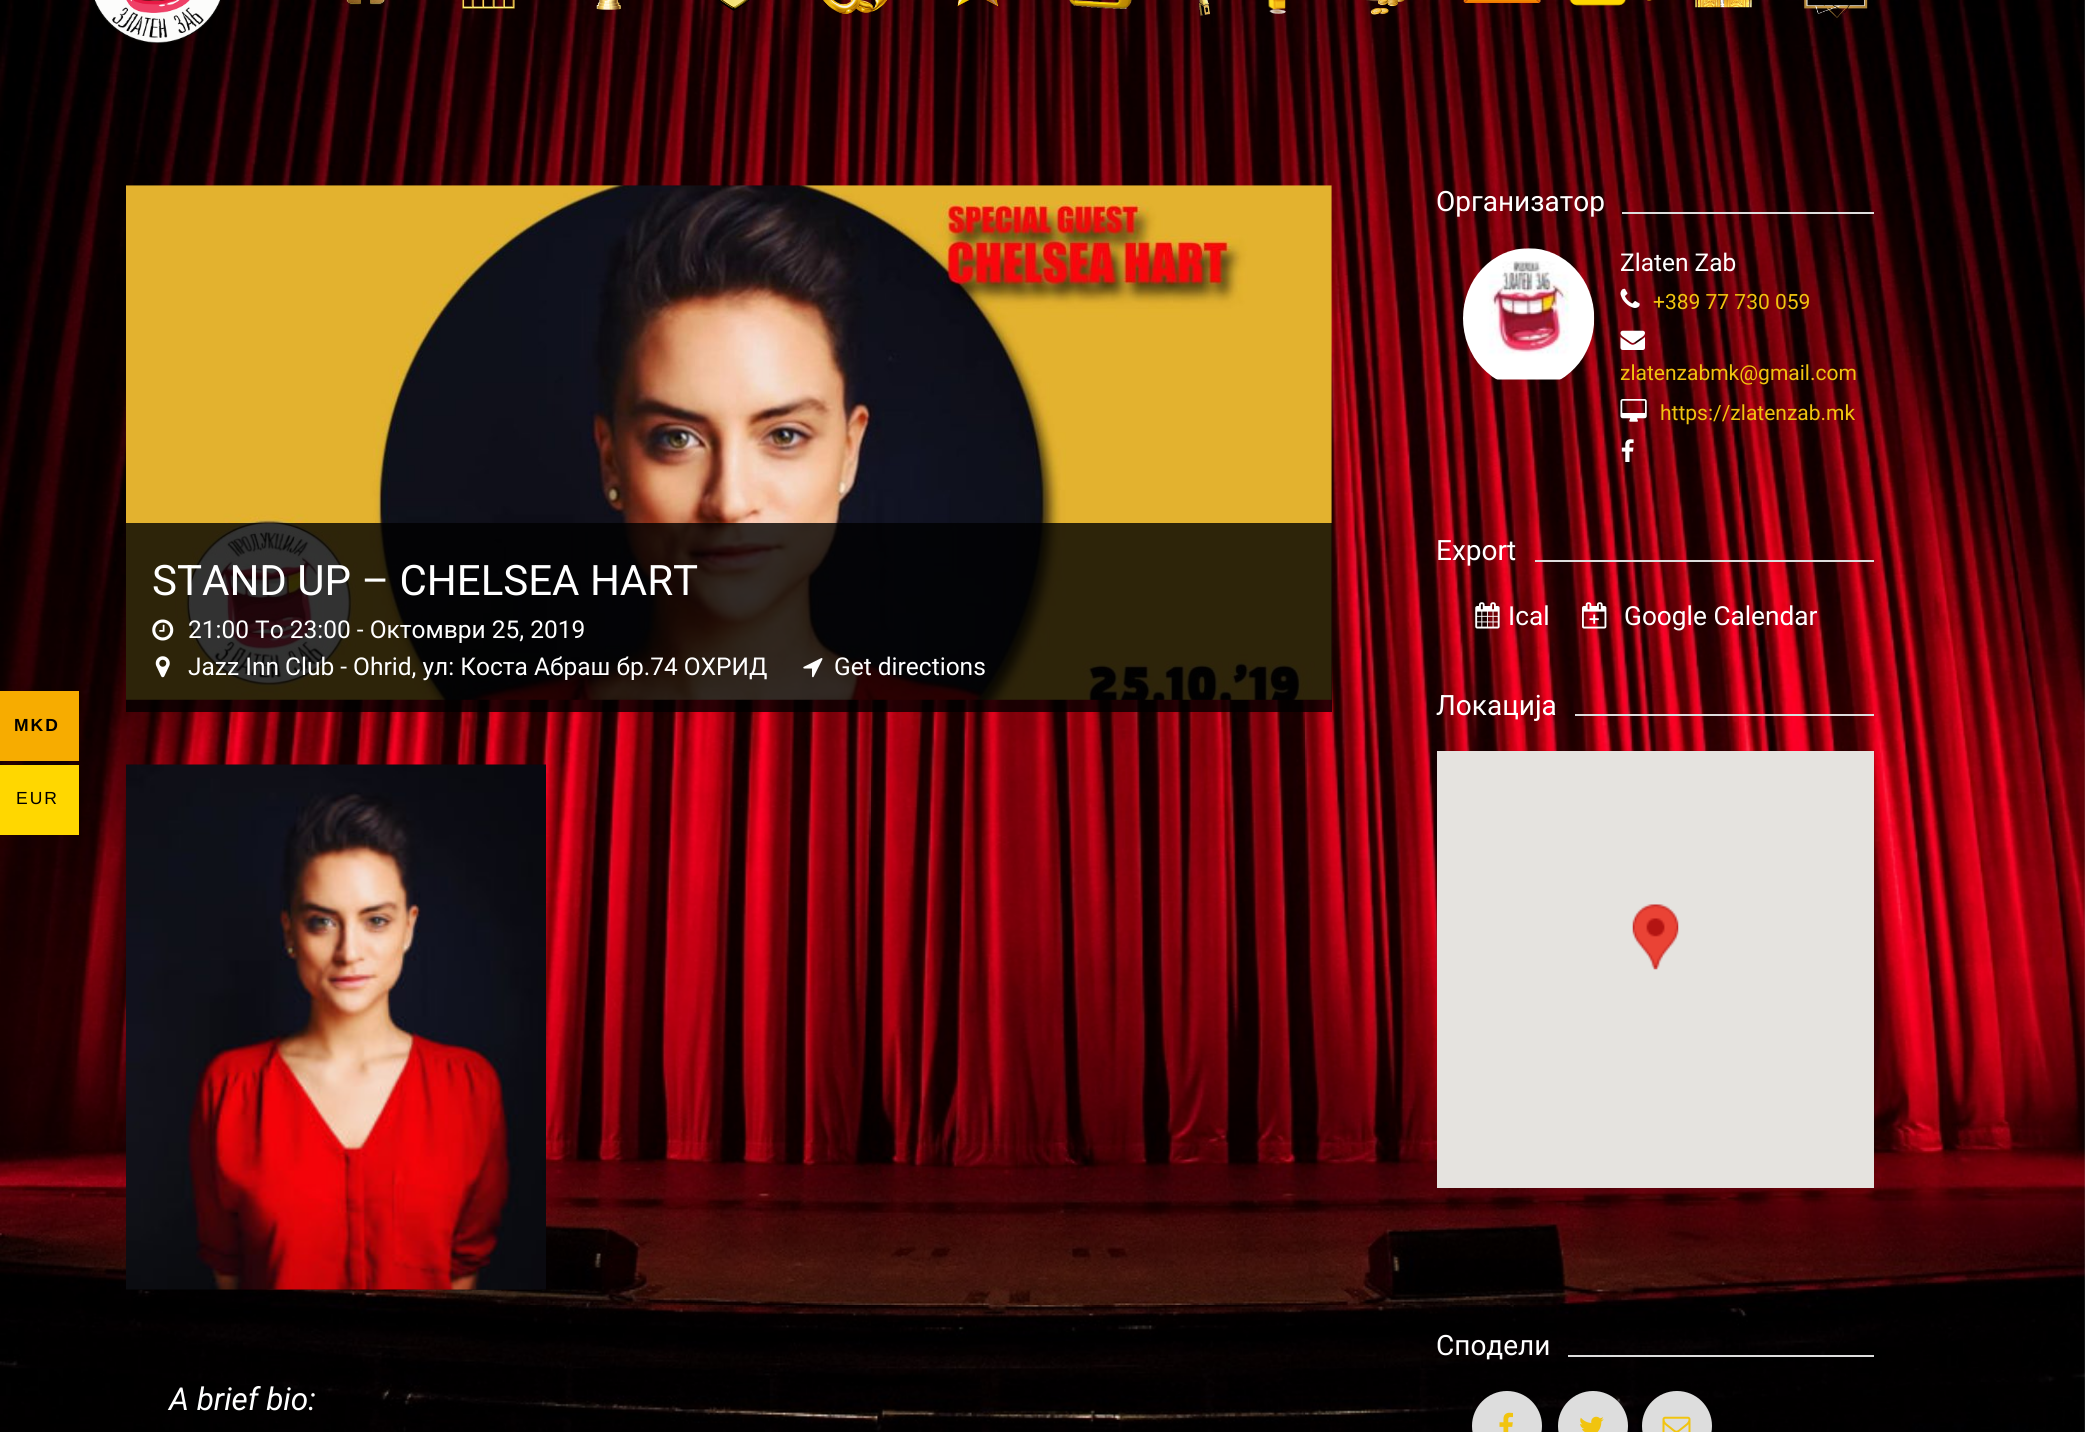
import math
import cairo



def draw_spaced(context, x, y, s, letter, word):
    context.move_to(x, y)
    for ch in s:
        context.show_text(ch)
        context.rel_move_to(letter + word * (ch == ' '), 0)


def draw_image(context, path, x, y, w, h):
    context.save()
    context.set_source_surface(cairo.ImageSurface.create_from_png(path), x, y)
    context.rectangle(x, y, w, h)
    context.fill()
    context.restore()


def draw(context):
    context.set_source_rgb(1, 1, 1)
    context.paint()
    draw_image(context, "images/1.png", 0, 0, 2085, 1432)
    draw_image(context, "images/2.png", 94, 0, 127, 43)
    draw_image(context, "images/3.png", 346, 0, 39, 5)
    draw_image(context, "images/4.png", 462, 0, 53, 9)
    draw_image(context, "images/5.png", 596, 0, 25, 10)
    draw_image(context, "images/6.png", 719, 0, 31, 11)
    draw_image(context, "images/7.png", 823, 0, 64, 14)
    draw_image(context, "images/8.png", 957, 0, 43, 8)
    draw_image(context, "images/9.png", 1069, 0, 63, 9)
    draw_image(context, "images/10.png", 1199, 0, 11, 16)
    draw_image(context, "images/11.png", 1268, 0, 18, 14)
    draw_image(context, "images/12.png", 1366, 0, 39, 15)
    draw_image(context, "images/13.png", 1463, 0, 78, 3)
    draw_image(context, "images/14.png", 1569, 0, 83, 6)
    draw_image(context, "images/15.png", 1695, 0, 57, 8)
    draw_image(context, "images/16.png", 1804, 0, 64, 18)
    context.set_source_rgb(247 / 255, 172 / 255, 0)
    context.rectangle(0, 691, 79, 70)
    context.fill()
    context.set_source_rgb(1, 215 / 255, 0)
    context.rectangle(0, 765, 79, 70)
    context.fill()
    draw_image(context, "images/17.png", 126, 185, 1206, 515)
    context.set_source_rgba(0, 0, 0, 0.8)
    context.rectangle(126, 523, 1206, 189)
    context.fill()
    draw_image(context, "images/18.png", 152, 619, 22, 22)
    draw_image(context, "images/19.png", 155, 656, 15, 22)
    draw_image(context, "images/20.png", 803, 658, 20, 20)
    draw_image(context, "images/21.png", 126, 764, 420, 526)
    context.set_source_rgb(221 / 255, 221 / 255, 221 / 255)
    context.rectangle(1622, 212, 252, 2)
    context.fill()
    draw_image(context, "images/22.png", 1463, 248, 132, 132)
    draw_image(context, "images/23.png", 1620, 288, 20, 20)
    draw_image(context, "images/24.png", 1620, 330, 25, 20)
    draw_image(context, "images/25.png", 1620, 399, 27, 23)
    draw_image(context, "images/26.png", 1621, 439, 13, 23)
    context.rectangle(1535, 560, 339, 2)
    context.fill()
    draw_image(context, "images/27.png", 1475, 602, 25, 27)
    draw_image(context, "images/28.png", 1582, 602, 25, 27)
    context.rectangle(1575, 714, 299, 2)
    context.fill()
    context.set_source_rgb(229 / 255, 227 / 255, 223 / 255)
    context.rectangle(1437, 751, 437, 437)
    context.fill()
    draw_image(context, "images/29.png", 1632, 904, 47, 66)
    context.set_source_rgb(221 / 255, 221 / 255, 221 / 255)
    context.rectangle(1568, 1355, 306, 2)
    context.fill()
    context.arc(1507, 1426, 35, 0, 2 * math.pi)
    context.fill()
    draw_image(context, "images/30.png", 1499, 1412, 14, 20)
    context.arc(1593, 1426, 35, 0, 2 * math.pi)
    context.fill()
    draw_image(context, "images/31.png", 1580, 1416, 24, 16)
    context.arc(1677, 1426, 35, 0, 2 * math.pi)
    context.fill()
    draw_image(context, "images/32.png", 1662, 1416, 29, 16)
    context.select_font_face("Liberation Sans", cairo.FontSlant.NORMAL, cairo.FontWeight.BOLD)
    context.set_font_size(17.5)
    context.set_source_rgb(0, 0, 0)
    draw_spaced(context, 14, 731, "MKD", 2, 0)
    context.select_font_face("Liberation Sans")
    draw_spaced(context, 16, 804, "EUR", 2, 0)
    context.select_font_face("Roboto")
    context.set_font_size(42)
    context.set_source_rgb(1, 1, 1)
    context.move_to(152, 595)
    context.show_text("STAND UP – CHELSEA HART")
    context.set_font_size(24.5)
    context.move_to(188, 638)
    context.show_text("21:00 To 23:00 - Октомври 25, 2019")
    context.move_to(188, 675)
    context.show_text("Jazz Inn Club - Ohrid, ул: Коста Абраш бр.74 ОХРИД")
    context.move_to(834, 675)
    context.show_text("Get directions")
    context.select_font_face("Roboto", cairo.FontSlant.ITALIC)
    context.set_font_size(31.5)
    context.move_to(169, 1410)
    context.show_text("A brief bio:")
    context.select_font_face("Roboto")
    context.set_font_size(28)
    context.move_to(1436, 211)
    context.show_text("Организатор")
    context.set_font_size(24.5)
    context.move_to(1620, 271)
    context.show_text("Zlaten Zab")
    context.set_font_size(21)
    context.set_source_rgb(241 / 255, 196 / 255, 15 / 255)
    context.move_to(1653, 309)
    context.show_text("+389 77 730 059")
    context.move_to(1620, 380)
    context.show_text("zlatenzabmk@gmail.com")
    context.move_to(1660, 420)
    context.show_text("https://zlatenzab.mk")
    context.set_font_size(28)
    context.set_source_rgb(1, 1, 1)
    context.move_to(1436, 560)
    context.show_text("Export")
    context.set_font_size(26.25)
    context.move_to(1508, 625)
    context.show_text("Ical")
    context.move_to(1624, 625)
    context.show_text("Google Calendar")
    context.set_font_size(28)
    context.move_to(1436, 715)
    context.show_text("Локација")
    context.move_to(1436, 1355)
    context.show_text("Сподели")


surface = cairo.ImageSurface(cairo.Format.RGB24, 2085, 1432)
context = cairo.Context(surface)
options = cairo.FontOptions()
options.set_hint_metrics(cairo.HintMetrics.OFF)
options.set_hint_style(cairo.HintStyle.NONE)
context.set_font_options(options)
context.set_miter_limit(4)
draw(context)
surface.write_to_png("out.png")
